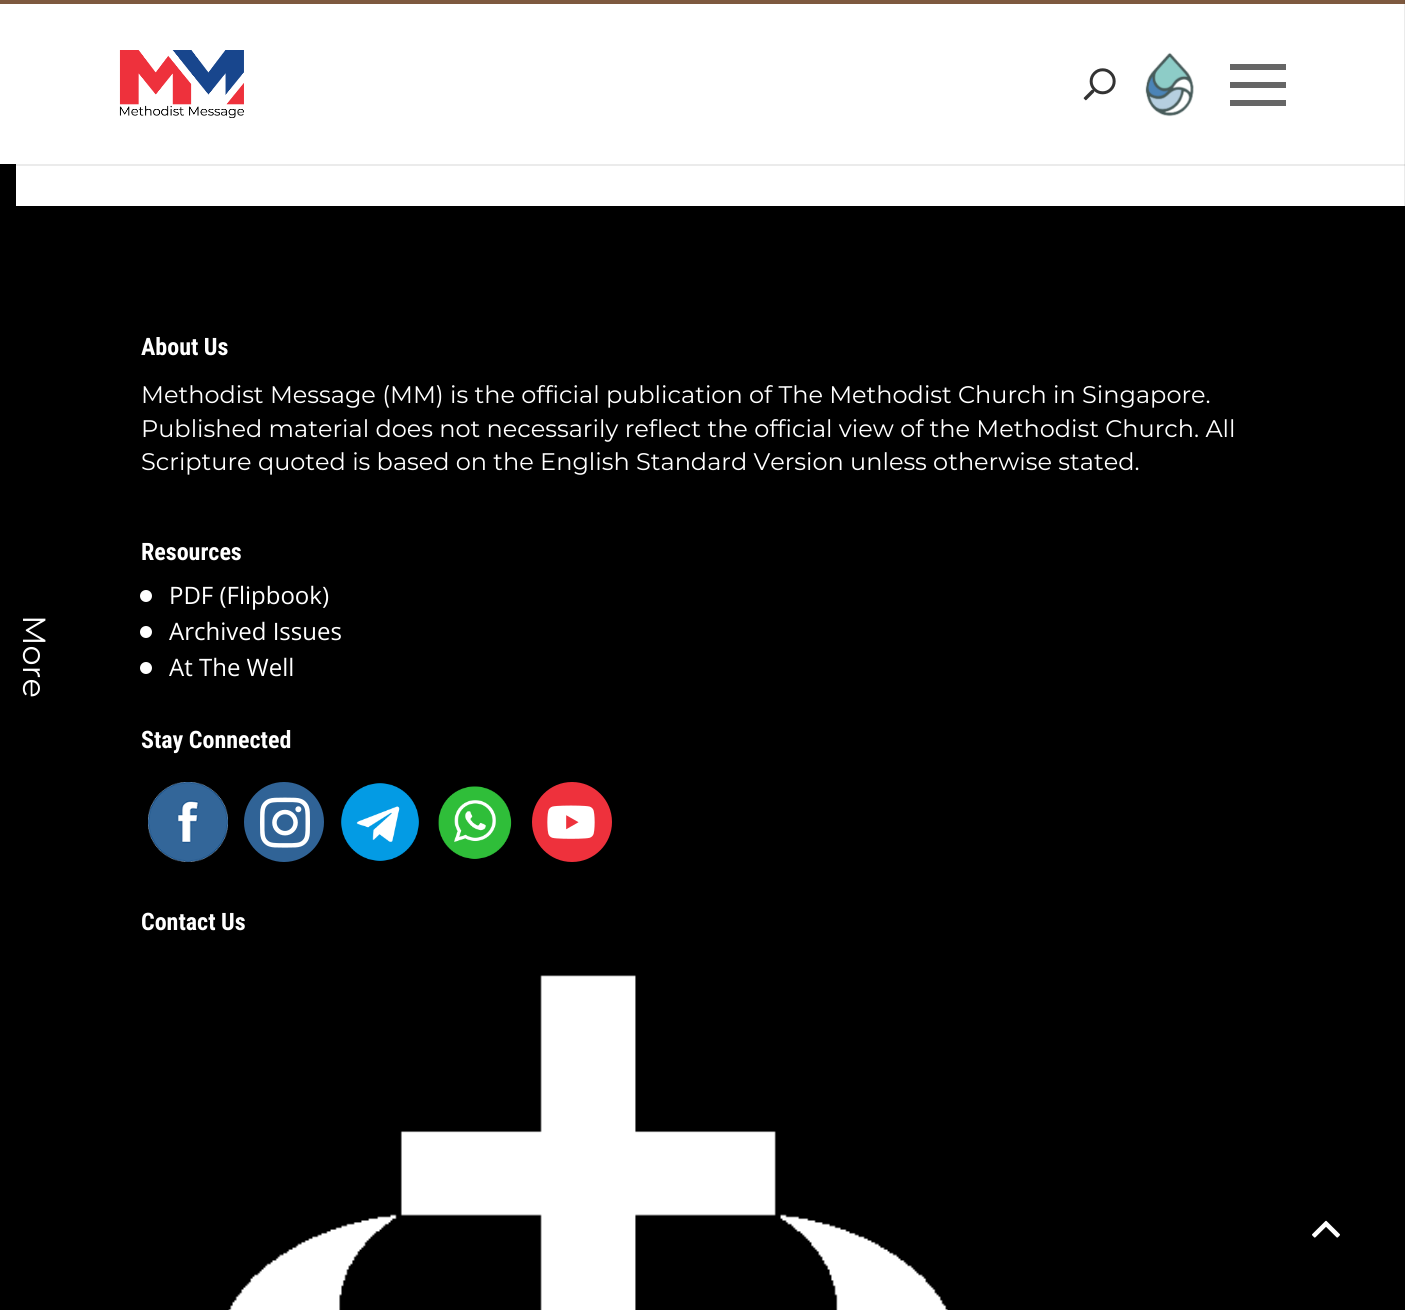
import math
import cairo



def draw_image(context, path, x, y, w, h):
    context.save()
    context.set_source_surface(cairo.ImageSurface.create_from_png(path), x, y)
    context.rectangle(x, y, w, h)
    context.fill()
    context.restore()


def draw(context):
    context.set_source_rgb(1, 1, 1)
    context.paint()
    context.set_source_rgb(235 / 255, 235 / 255, 235 / 255)
    context.rectangle(1404, 166, 1, 40)
    context.fill()
    context.rectangle(16, 164, 1389, 2)
    context.fill()
    context.set_source_rgb(216 / 255, 216 / 255, 216 / 255)
    context.rectangle(1404, 164, 1, 2)
    context.fill()
    context.set_source_rgb(126 / 255, 89 / 255, 63 / 255)
    context.rectangle(0, 0, 1405, 4)
    context.fill()
    context.set_source_rgb(116 / 255, 82 / 255, 58 / 255)
    context.rectangle(1404, 0, 1, 4)
    context.fill()
    context.set_source_rgb(235 / 255, 235 / 255, 235 / 255)
    context.rectangle(1404, 4, 1, 160)
    context.fill()
    draw_image(context, "images/1.png", 119, 50, 125, 68)
    draw_image(context, "images/2.png", 1083, 68, 33, 33)
    draw_image(context, "images/3.png", 1145, 52, 49, 65)
    context.set_source_rgb(102 / 255, 102 / 255, 102 / 255)
    context.rectangle(1230, 82, 56, 6)
    context.fill()
    context.rectangle(1230, 64, 56, 6)
    context.fill()
    context.rectangle(1230, 100, 56, 6)
    context.fill()
    context.set_source_rgb(0, 0, 0)
    context.rectangle(0, 164, 16, 1146)
    context.fill()
    context.rectangle(16, 206, 1389, 1104)
    context.fill()
    context.set_source_rgb(1, 1, 1)
    context.arc(146, 596, 6, 0, 2 * math.pi)
    context.fill()
    context.arc(146, 632, 6, 0, 2 * math.pi)
    context.fill()
    context.arc(146, 668, 6, 0, 2 * math.pi)
    context.fill()
    draw_image(context, "images/4.png", 148, 782, 80, 80)
    context.set_source_rgb(48 / 255, 99 / 255, 150 / 255)
    context.arc(284, 822, 40, 0, 2 * math.pi)
    context.fill()
    draw_image(context, "images/5.png", 260, 797, 50, 51)
    draw_image(context, "images/6.png", 341, 783, 78, 78)
    draw_image(context, "images/7.png", 438, 786, 74, 73)
    context.set_source_rgb(238 / 255, 49 / 255, 60 / 255)
    context.arc(572, 822, 40, 0, 2 * math.pi)
    context.fill()
    draw_image(context, "images/8.png", 547, 805, 48, 34)
    draw_image(context, "images/9.png", 228, 975, 720, 335)
    draw_image(context, "images/10.png", 1312, 1220, 28, 18)
    context.select_font_face("Montserrat")
    context.set_font_size(32)
    context.set_source_rgb(1, 1, 1)
    context.save()
    context.translate(23, 615)
    context.rotate(90 * math.pi / 180)
    context.move_to(0, 0)
    context.show_text("More")
    context.restore()
    context.select_font_face("Roboto Condensed", cairo.FontSlant.NORMAL, cairo.FontWeight.BOLD)
    context.set_font_size(24)
    context.move_to(141, 355)
    context.show_text("About Us")
    context.select_font_face("Montserrat")
    context.move_to(141, 403)
    context.show_text("Methodist Message (MM) is the official publication of The Methodist Church in Singapore.")
    context.move_to(141, 437)
    context.show_text("Published material does not necessarily reflect the official view of the Methodist Church. All")
    context.move_to(141, 470)
    context.show_text("Scripture quoted is based on the English Standard Version unless otherwise stated.")
    context.select_font_face("Roboto Condensed", cairo.FontSlant.NORMAL, cairo.FontWeight.BOLD)
    context.move_to(141, 560)
    context.show_text("Resources")
    context.select_font_face("Open Sans")
    context.move_to(169, 604)
    context.show_text("PDF (Flipbook)")
    context.move_to(169, 640)
    context.show_text("Archived Issues")
    context.move_to(169, 676)
    context.show_text("At The Well")
    context.select_font_face("Roboto Condensed", cairo.FontSlant.NORMAL, cairo.FontWeight.BOLD)
    context.move_to(141, 748)
    context.show_text("Stay Connected")
    context.move_to(141, 930)
    context.show_text("Contact Us")


surface = cairo.ImageSurface(cairo.Format.RGB24, 1405, 1310)
context = cairo.Context(surface)
options = cairo.FontOptions()
options.set_hint_metrics(cairo.HintMetrics.OFF)
options.set_hint_style(cairo.HintStyle.NONE)
context.set_font_options(options)
context.set_miter_limit(4)
draw(context)
surface.write_to_png("out.png")
